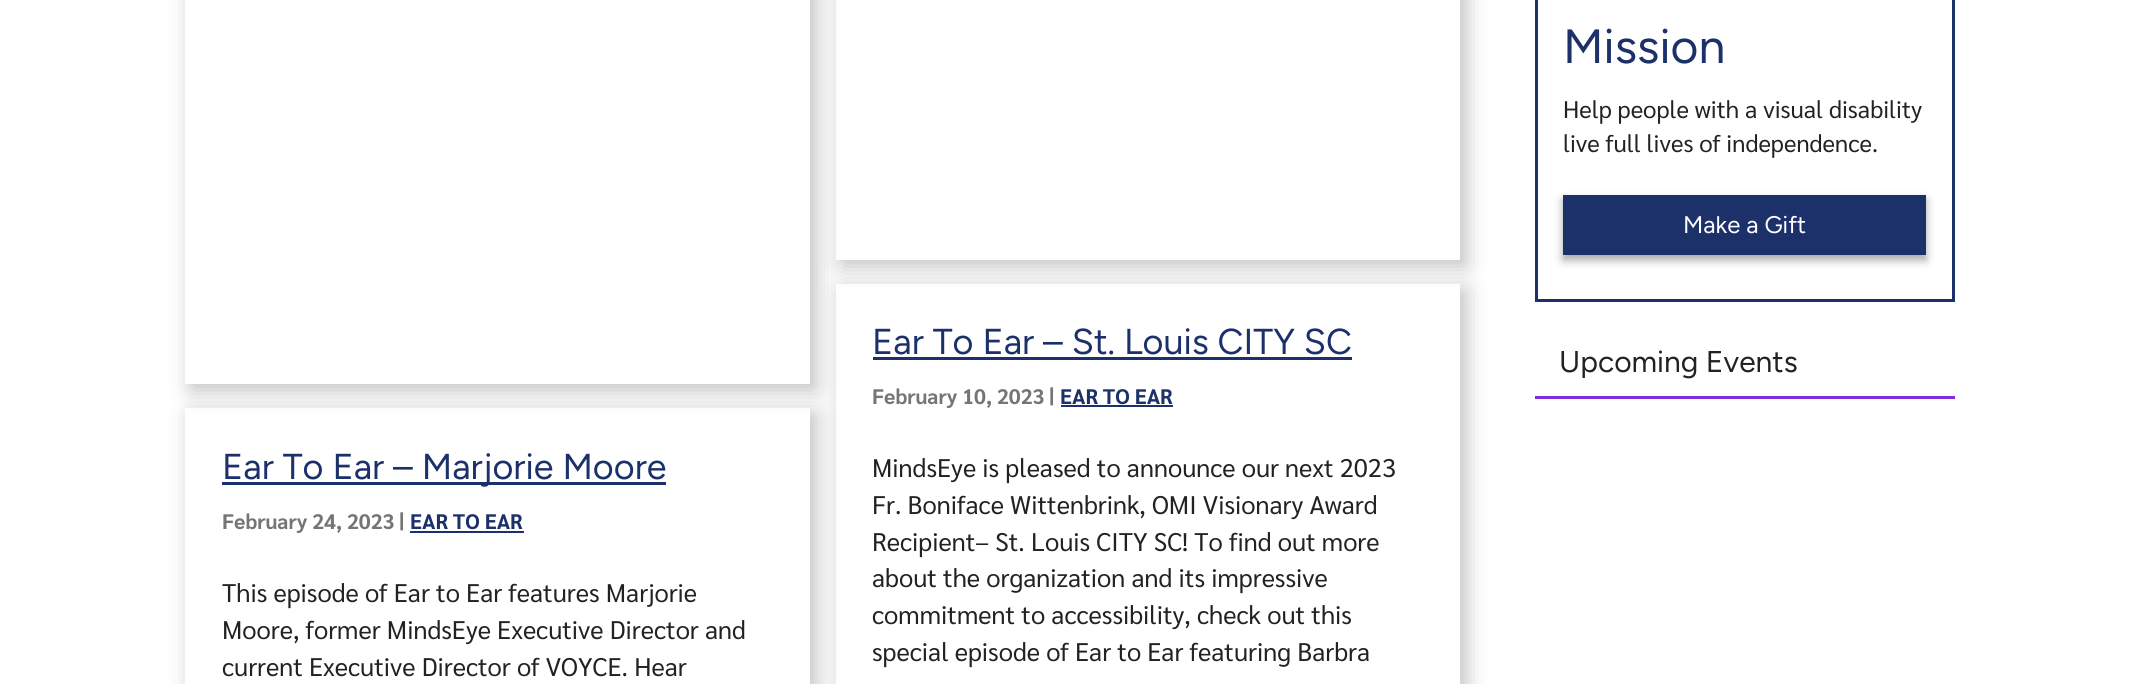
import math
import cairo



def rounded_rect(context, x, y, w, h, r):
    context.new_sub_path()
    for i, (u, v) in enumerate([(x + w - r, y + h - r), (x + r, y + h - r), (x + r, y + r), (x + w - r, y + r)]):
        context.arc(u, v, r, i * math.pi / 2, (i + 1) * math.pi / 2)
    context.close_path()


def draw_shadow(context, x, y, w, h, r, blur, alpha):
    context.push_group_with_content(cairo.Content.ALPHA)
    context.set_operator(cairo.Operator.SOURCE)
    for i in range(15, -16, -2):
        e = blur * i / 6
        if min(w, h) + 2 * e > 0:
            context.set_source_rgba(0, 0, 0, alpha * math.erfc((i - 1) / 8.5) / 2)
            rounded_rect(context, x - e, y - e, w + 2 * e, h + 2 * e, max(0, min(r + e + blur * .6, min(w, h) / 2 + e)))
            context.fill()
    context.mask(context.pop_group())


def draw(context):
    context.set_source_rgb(1, 1, 1)
    context.paint()
    context.rectangle(1536.5, -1.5, 417, 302)
    context.set_source_rgb(28 / 255, 48 / 255, 106 / 255)
    context.set_line_width(3)
    context.stroke()
    context.set_source_rgb(0, 0, 0)
    draw_shadow(context, 1563, 200, 363, 60, 0, 4.5, 0.35)
    context.set_source_rgb(28 / 255, 48 / 255, 106 / 255)
    context.rectangle(1563, 195, 363, 60)
    context.fill()
    context.set_source_rgb(132 / 255, 43 / 255, 219 / 255)
    context.rectangle(1535, 396, 420, 3)
    context.fill()
    context.save()
    context.set_fill_rule(cairo.FillRule.EVEN_ODD)
    context.new_path()
    context.move_to(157, 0)
    context.line_to(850, 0)
    context.line_to(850, 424)
    context.line_to(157, 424)
    context.close_path()
    context.move_to(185, -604)
    context.line_to(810, -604)
    context.line_to(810, 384)
    context.line_to(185, 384)
    context.close_path()
    context.clip()
    context.set_source_rgb(0, 0, 0)
    draw_shadow(context, 191, -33, 625, 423, 0, 11, 0.25)
    context.restore()
    context.save()
    context.set_fill_rule(cairo.FillRule.EVEN_ODD)
    context.new_path()
    context.move_to(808, 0)
    context.line_to(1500, 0)
    context.line_to(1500, 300)
    context.line_to(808, 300)
    context.close_path()
    context.move_to(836, -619)
    context.line_to(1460, -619)
    context.line_to(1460, 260)
    context.line_to(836, 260)
    context.close_path()
    context.clip()
    context.set_source_rgb(0, 0, 0)
    draw_shadow(context, 842, -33, 624, 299, 0, 11, 0.25)
    context.restore()
    context.save()
    context.set_fill_rule(cairo.FillRule.EVEN_ODD)
    context.new_path()
    context.move_to(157, 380)
    context.line_to(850, 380)
    context.line_to(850, 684)
    context.line_to(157, 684)
    context.close_path()
    context.move_to(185, 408)
    context.line_to(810, 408)
    context.line_to(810, 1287)
    context.line_to(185, 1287)
    context.close_path()
    context.clip()
    context.set_source_rgb(0, 0, 0)
    draw_shadow(context, 191, 414, 625, 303, 0, 11, 0.25)
    context.restore()
    context.set_source_rgb(28 / 255, 48 / 255, 106 / 255)
    context.rectangle(222, 482, 444, 3)
    context.fill()
    context.rectangle(410, 531, 114, 2)
    context.fill()
    context.save()
    context.set_fill_rule(cairo.FillRule.EVEN_ODD)
    context.new_path()
    context.move_to(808, 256)
    context.line_to(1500, 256)
    context.line_to(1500, 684)
    context.line_to(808, 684)
    context.close_path()
    context.move_to(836, 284)
    context.line_to(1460, 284)
    context.line_to(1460, 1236)
    context.line_to(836, 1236)
    context.close_path()
    context.clip()
    context.set_source_rgb(0, 0, 0)
    draw_shadow(context, 842, 290, 624, 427, 0, 11, 0.25)
    context.restore()
    context.rectangle(873, 357, 479, 3)
    context.fill()
    context.rectangle(1061, 405, 112, 2)
    context.fill()
    context.select_font_face("Figtree")
    context.set_font_size(48)
    context.move_to(1563, 63)
    context.show_text("Mission")
    context.select_font_face("Sarabun")
    context.set_font_size(24)
    context.set_source_rgb(34 / 255, 34 / 255, 34 / 255)
    context.move_to(1563, 118)
    context.show_text("Help people with a visual disability")
    context.move_to(1563, 152)
    context.show_text("live full lives of independence.")
    context.select_font_face("Figtree")
    context.set_source_rgb(1, 1, 1)
    context.move_to(1683, 233)
    context.show_text("Make a Gift")
    context.set_font_size(30)
    context.set_source_rgb(34 / 255, 34 / 255, 34 / 255)
    context.move_to(1559, 372)
    context.show_text("Upcoming Events")
    context.set_font_size(36)
    context.set_source_rgb(28 / 255, 48 / 255, 106 / 255)
    context.move_to(222, 479)
    context.show_text("Ear To Ear – Marjorie Moore")
    context.select_font_face("Sarabun", cairo.FontSlant.NORMAL, cairo.FontWeight.BOLD)
    context.set_font_size(21)
    context.set_source_rgb(117 / 255, 117 / 255, 117 / 255)
    context.move_to(222, 529)
    context.show_text("February 24, 2023")
    context.move_to(399, 527)
    context.show_text("|")
    context.set_source_rgb(28 / 255, 48 / 255, 106 / 255)
    context.move_to(410, 529)
    context.show_text("EAR TO EAR")
    context.select_font_face("Sarabun")
    context.set_font_size(25.5)
    context.set_source_rgb(34 / 255, 34 / 255, 34 / 255)
    context.move_to(222, 602)
    context.show_text("This episode of Ear to Ear features Marjorie")
    context.move_to(222, 639)
    context.show_text("Moore, former MindsEye Executive Director and")
    context.move_to(222, 676)
    context.show_text("current Executive Director of VOYCE. Hear")
    context.select_font_face("Figtree")
    context.set_font_size(36)
    context.set_source_rgb(28 / 255, 48 / 255, 106 / 255)
    context.move_to(872, 354)
    context.show_text("Ear To Ear – St. Louis CITY SC")
    context.select_font_face("Sarabun", cairo.FontSlant.NORMAL, cairo.FontWeight.BOLD)
    context.set_font_size(21)
    context.set_source_rgb(117 / 255, 117 / 255, 117 / 255)
    context.move_to(872, 404)
    context.show_text("February 10, 2023")
    context.move_to(1049, 402)
    context.show_text("|")
    context.set_source_rgb(28 / 255, 48 / 255, 106 / 255)
    context.move_to(1060, 404)
    context.show_text("EAR TO EAR")
    context.select_font_face("Sarabun")
    context.set_font_size(25.5)
    context.set_source_rgb(34 / 255, 34 / 255, 34 / 255)
    context.move_to(872, 477)
    context.show_text("MindsEye is pleased to announce our next 2023")
    context.move_to(872, 514)
    context.show_text("Fr. Boniface Wittenbrink, OMI Visionary Award")
    context.move_to(872, 551)
    context.show_text("Recipient– St. Louis CITY SC! To find out more")
    context.move_to(872, 587)
    context.show_text("about the organization and its impressive")
    context.move_to(872, 624)
    context.show_text("commitment to accessibility, check out this")
    context.move_to(872, 661)
    context.show_text("special episode of Ear to Ear featuring Barbra")


surface = cairo.ImageSurface(cairo.Format.RGB24, 2138, 684)
context = cairo.Context(surface)
options = cairo.FontOptions()
options.set_hint_metrics(cairo.HintMetrics.OFF)
options.set_hint_style(cairo.HintStyle.NONE)
context.set_font_options(options)
context.set_miter_limit(4)
draw(context)
surface.write_to_png("out.png")
